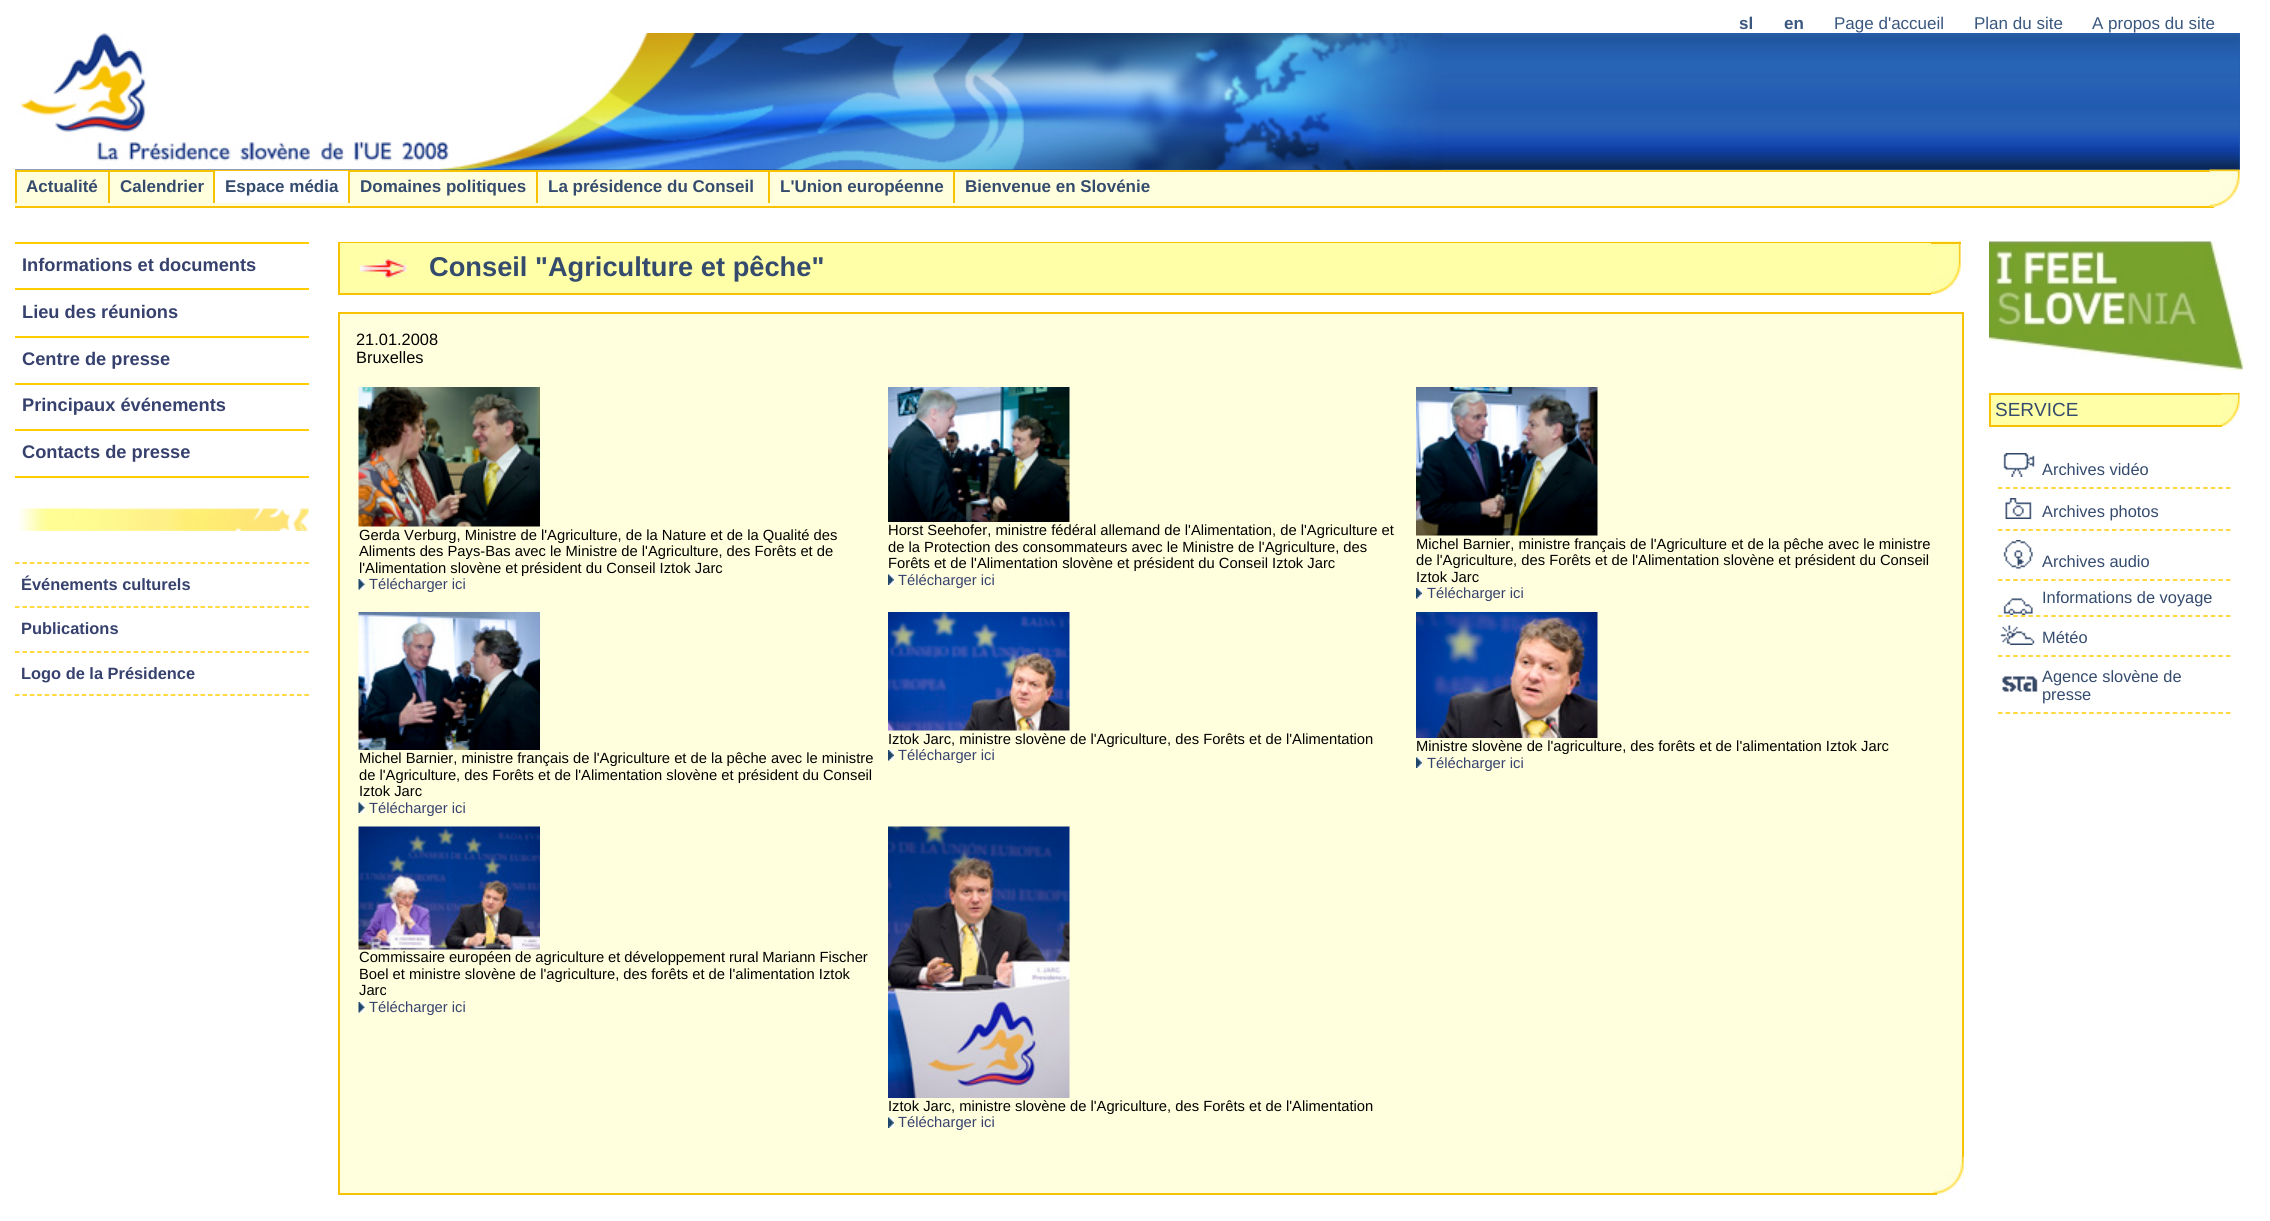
import math
import cairo



def draw_spaced(context, x, y, s, letter, word):
    context.move_to(x, y)
    for ch in s:
        context.show_text(ch)
        context.rel_move_to(letter + word * (ch == ' '), 0)


def draw_image(context, path, x, y, w, h):
    context.save()
    context.set_source_surface(cairo.ImageSurface.create_from_png(path), x, y)
    context.rectangle(x, y, w, h)
    context.fill()
    context.restore()


def draw(context):
    context.set_source_rgb(1, 1, 1)
    context.paint()
    context.set_source_rgb(36 / 255, 92 / 255, 177 / 255)
    context.rectangle(15, 33, 2225, 137)
    context.fill()
    draw_image(context, "images/1.png", 15, 34, 2225, 136)
    draw_image(context, "images/2.png", 15, 33, 1428, 137)
    context.set_source_rgb(1, 1, 221 / 255)
    context.rectangle(15, 172, 2195, 34)
    context.fill()
    context.set_source_rgb(247 / 255, 194 / 255, 2 / 255)
    context.rectangle(15, 170, 2199, 2)
    context.fill()
    context.rectangle(15, 206, 2199, 2)
    context.fill()
    context.rectangle(15, 170, 2, 33)
    context.fill()
    context.rectangle(108, 170, 2, 33)
    context.fill()
    context.set_source_rgb(1, 1, 1)
    context.rectangle(215, 171, 133, 32)
    context.fill()
    context.set_source_rgb(247 / 255, 194 / 255, 2 / 255)
    context.rectangle(213, 171, 2, 32)
    context.fill()
    context.rectangle(348, 170, 2, 33)
    context.fill()
    context.rectangle(536, 170, 2, 33)
    context.fill()
    context.rectangle(768, 170, 2, 33)
    context.fill()
    context.rectangle(953, 170, 2, 33)
    context.fill()
    draw_image(context, "images/3.png", 2209, 169, 31, 38)
    context.set_source_rgb(1, 204 / 255, 0)
    context.rectangle(15, 242, 294, 2)
    context.fill()
    context.rectangle(15, 288, 294, 2)
    context.fill()
    context.rectangle(15, 336, 294, 2)
    context.fill()
    context.rectangle(15, 383, 294, 2)
    context.fill()
    context.rectangle(15, 429, 294, 2)
    context.fill()
    context.rectangle(15, 476, 294, 2)
    context.fill()
    draw_image(context, "images/4.png", 18, 508, 291, 23)
    context.new_path()
    context.move_to(15, 563)
    context.line_to(309, 563)
    context.set_line_width(1.5)
    context.set_dash([4.5, 2.92])
    context.stroke()
    context.new_path()
    context.move_to(15, 607)
    context.line_to(309, 607)
    context.stroke()
    context.new_path()
    context.move_to(15, 652)
    context.line_to(309, 652)
    context.stroke()
    context.new_path()
    context.move_to(15, 695)
    context.line_to(309, 695)
    context.stroke()
    draw_image(context, "images/5.png", 1930, 241, 31, 53)
    context.set_source_rgb(247 / 255, 194 / 255, 2 / 255)
    context.rectangle(338, 242, 1623, 2)
    context.fill()
    context.set_source_rgb(1, 1, 168 / 255)
    context.rectangle(340, 243, 1591, 50)
    context.fill()
    draw_image(context, "images/6.png", 359, 259, 48, 19)
    context.set_source_rgb(247 / 255, 194 / 255, 2 / 255)
    context.rectangle(338, 293, 1593, 2)
    context.fill()
    context.rectangle(338, 243, 2, 51)
    context.fill()
    context.set_source_rgb(1, 1, 221 / 255)
    context.rectangle(340, 314, 1622, 843)
    context.fill()
    context.set_source_rgb(247 / 255, 194 / 255, 2 / 255)
    context.rectangle(338, 312, 1626, 2)
    context.fill()
    context.rectangle(1962, 312, 2, 845)
    context.fill()
    context.rectangle(338, 312, 2, 845)
    context.fill()
    draw_image(context, "images/7.png", 358, 387, 182, 140)
    draw_image(context, "images/8.png", 358, 579, 7, 11)
    draw_image(context, "images/9.png", 888, 387, 182, 135)
    draw_image(context, "images/10.png", 888, 574, 6, 11)
    draw_image(context, "images/11.png", 1416, 387, 182, 149)
    draw_image(context, "images/12.png", 1416, 588, 6, 11)
    draw_image(context, "images/13.png", 358, 612, 182, 138)
    draw_image(context, "images/14.png", 358, 802, 7, 11)
    draw_image(context, "images/15.png", 888, 612, 182, 119)
    draw_image(context, "images/12.png", 888, 750, 6, 11)
    draw_image(context, "images/16.png", 1416, 612, 182, 126)
    draw_image(context, "images/10.png", 1416, 757, 6, 11)
    draw_image(context, "images/17.png", 358, 826, 182, 124)
    draw_image(context, "images/8.png", 358, 1002, 7, 11)
    draw_image(context, "images/18.png", 888, 826, 182, 272)
    draw_image(context, "images/10.png", 888, 1117, 6, 11)
    context.set_source_rgb(1, 1, 221 / 255)
    context.rectangle(340, 1157, 1624, 37)
    context.fill()
    draw_image(context, "images/19.png", 1933, 1156, 31, 38)
    context.set_source_rgb(247 / 255, 194 / 255, 2 / 255)
    context.rectangle(338, 1193, 1599, 2)
    context.fill()
    context.rectangle(338, 1157, 2, 37)
    context.fill()
    draw_image(context, "images/20.png", 1989, 241, 255, 130)
    context.set_source_rgb(1, 1, 168 / 255)
    context.rectangle(1991, 395, 231, 30)
    context.fill()
    context.set_source_rgb(247 / 255, 194 / 255, 2 / 255)
    context.rectangle(1989, 393, 233, 2)
    context.fill()
    context.rectangle(1989, 425, 233, 2)
    context.fill()
    context.rectangle(1989, 393, 2, 33)
    context.fill()
    draw_image(context, "images/21.png", 2221, 393, 19, 33)
    context.new_path()
    context.move_to(1998, 488)
    context.line_to(2230.5, 488)
    context.set_source_rgb(1, 204 / 255, 0)
    context.set_dash([4.5, 3.1])
    context.stroke()
    draw_image(context, "images/22.png", 2003, 453, 32, 24)
    context.new_path()
    context.move_to(1998, 530)
    context.line_to(2230.5, 530)
    context.stroke()
    draw_image(context, "images/23.png", 2005, 498, 27, 21)
    context.new_path()
    context.move_to(1998, 580)
    context.line_to(2230.5, 580)
    context.stroke()
    draw_image(context, "images/24.png", 2003, 540, 30, 29)
    context.new_path()
    context.move_to(1998, 616)
    context.line_to(2230.5, 616)
    context.stroke()
    draw_image(context, "images/25.png", 2003, 598, 30, 17)
    context.new_path()
    context.move_to(1998, 656)
    context.line_to(2230.5, 656)
    context.stroke()
    draw_image(context, "images/26.png", 2000, 625, 35, 20)
    context.new_path()
    context.move_to(1998, 713)
    context.line_to(2230.5, 713)
    context.stroke()
    draw_image(context, "images/27.png", 2002, 676, 36, 16)
    context.select_font_face("Liberation Sans", cairo.FontSlant.NORMAL, cairo.FontWeight.BOLD)
    context.set_font_size(17)
    context.set_source_rgb(57 / 255, 87 / 255, 127 / 255)
    context.move_to(1739, 29)
    context.show_text("sl")
    context.move_to(1784, 29)
    context.show_text("en")
    context.select_font_face("Liberation Sans")
    context.move_to(1834, 29)
    context.show_text("Page d'accueil")
    context.move_to(1974, 29)
    context.show_text("Plan du site")
    context.move_to(2092, 29)
    context.show_text("A propos du site")
    context.select_font_face("Liberation Sans", cairo.FontSlant.NORMAL, cairo.FontWeight.BOLD)
    context.set_source_rgb(52 / 255, 75 / 255, 110 / 255)
    context.move_to(26, 192)
    context.show_text("Actualité")
    context.move_to(120, 192)
    context.show_text("Calendrier")
    context.move_to(225, 192)
    context.show_text("Espace média")
    context.move_to(360, 192)
    context.show_text("Domaines politiques")
    context.move_to(548, 192)
    context.show_text("La présidence du Conseil")
    context.move_to(780, 192)
    context.show_text("L'Union européenne")
    context.move_to(965, 192)
    context.show_text("Bienvenue en Slovénie")
    context.set_font_size(18.25)
    context.set_source_rgb(54 / 255, 65 / 255, 110 / 255)
    context.move_to(22, 271)
    context.show_text("Informations et documents")
    context.move_to(22, 318)
    context.show_text("Lieu des réunions")
    context.move_to(22, 365)
    context.show_text("Centre de presse")
    context.move_to(22, 411)
    context.show_text("Principaux événements")
    context.move_to(22, 458)
    context.show_text("Contacts de presse")
    context.set_font_size(16.4)
    context.move_to(21, 590)
    context.show_text("Événements culturels")
    context.move_to(21, 634)
    context.show_text("Publications")
    context.move_to(21, 679)
    context.show_text("Logo de la Présidence")
    context.set_font_size(27.25)
    context.set_source_rgb(52 / 255, 75 / 255, 110 / 255)
    context.move_to(429, 276)
    context.show_text("Conseil \"Agriculture et pêche\"")
    context.select_font_face("Liberation Sans")
    context.set_font_size(16.4)
    context.set_source_rgb(0, 0, 0)
    context.move_to(356, 345)
    context.show_text("21.01.2008")
    context.move_to(356, 363)
    context.show_text("Bruxelles")
    context.set_font_size(14.75)
    context.move_to(359, 540)
    context.show_text("Gerda Verburg, Ministre de l'Agriculture, de la Nature et de la Qualité des")
    context.move_to(359, 556)
    context.show_text("Aliments des Pays-Bas avec le Ministre de l'Agriculture, des Forêts et de")
    context.move_to(359, 573)
    context.show_text("l'Alimentation slovène et")
    context.move_to(521, 573)
    context.show_text("président du Conseil Iztok Jarc")
    context.set_source_rgb(54 / 255, 65 / 255, 110 / 255)
    context.move_to(369, 589)
    context.show_text("Télécharger ici")
    context.set_source_rgb(0, 0, 0)
    context.move_to(888, 535)
    context.show_text("Horst Seehofer, ministre fédéral allemand de l'Alimentation, de l'Agriculture et")
    context.move_to(888, 552)
    context.show_text("de la Protection des consommateurs avec le Ministre de l'Agriculture, des")
    context.move_to(888, 568)
    context.show_text("Forêts et de l'Alimentation slovène et président du Conseil Iztok Jarc")
    context.set_source_rgb(54 / 255, 65 / 255, 110 / 255)
    context.move_to(898, 585)
    context.show_text("Télécharger ici")
    context.set_source_rgb(0, 0, 0)
    context.move_to(1416, 549)
    context.show_text("Michel Barnier, ministre français de l'Agriculture et de la pêche avec le ministre")
    context.move_to(1416, 565)
    context.show_text("de l'Agriculture, des Forêts et de l'Alimentation slovène et président du Conseil")
    context.move_to(1416, 582)
    context.show_text("Iztok Jarc")
    context.set_source_rgb(54 / 255, 65 / 255, 110 / 255)
    context.move_to(1427, 598)
    context.show_text("Télécharger ici")
    context.set_source_rgb(0, 0, 0)
    context.move_to(359, 763)
    context.show_text("Michel Barnier, ministre français de l'Agriculture et de la pêche avec le ministre")
    context.move_to(359, 780)
    context.show_text("de l'Agriculture, des Forêts et de l'Alimentation slovène et président du Conseil")
    context.move_to(359, 796)
    context.show_text("Iztok Jarc")
    context.set_source_rgb(54 / 255, 65 / 255, 110 / 255)
    context.move_to(369, 813)
    context.show_text("Télécharger ici")
    context.set_source_rgb(0, 0, 0)
    context.move_to(888, 744)
    context.show_text("Iztok Jarc, ministre slovène de l'Agriculture, des Forêts et de l'Alimentation")
    context.set_source_rgb(54 / 255, 65 / 255, 110 / 255)
    context.move_to(898, 760)
    context.show_text("Télécharger ici")
    context.set_source_rgb(0, 0, 0)
    context.move_to(1416, 751)
    context.show_text("Ministre slovène de l'agriculture, des forêts et de l'alimentation Iztok Jarc")
    context.set_source_rgb(54 / 255, 65 / 255, 110 / 255)
    context.move_to(1427, 768)
    context.show_text("Télécharger ici")
    context.set_source_rgb(0, 0, 0)
    draw_spaced(context, 359, 962, "Commissaire européen de agriculture et développement rural Mariann Fischer", 0, -0.25)
    context.move_to(359, 979)
    context.show_text("Boel et ministre slovène de l'agriculture, des forêts et de l'alimentation Iztok")
    context.move_to(359, 995)
    context.show_text("Jarc")
    context.set_source_rgb(54 / 255, 65 / 255, 110 / 255)
    context.move_to(369, 1012)
    context.show_text("Télécharger ici")
    context.set_source_rgb(0, 0, 0)
    context.move_to(888, 1111)
    context.show_text("Iztok Jarc, ministre slovène de l'Agriculture, des Forêts et de l'Alimentation")
    context.set_source_rgb(54 / 255, 65 / 255, 110 / 255)
    context.move_to(898, 1127)
    context.show_text("Télécharger ici")
    context.set_font_size(19)
    context.set_source_rgb(52 / 255, 75 / 255, 110 / 255)
    context.move_to(1995, 416)
    context.show_text("SERVICE")
    context.set_font_size(16.4)
    context.move_to(2042, 475)
    context.show_text("Archives vidéo")
    context.move_to(2042, 517)
    context.show_text("Archives photos")
    context.move_to(2042, 567)
    context.show_text("Archives audio")
    context.move_to(2042, 603)
    context.show_text("Informations de voyage")
    context.move_to(2042, 643)
    context.show_text("Météo")
    context.move_to(2042, 682)
    context.show_text("Agence slovène de")
    context.move_to(2042, 700)
    context.show_text("presse")


surface = cairo.ImageSurface(cairo.Format.RGB24, 2270, 1221)
context = cairo.Context(surface)
options = cairo.FontOptions()
options.set_hint_metrics(cairo.HintMetrics.OFF)
options.set_hint_style(cairo.HintStyle.NONE)
context.set_font_options(options)
context.set_miter_limit(4)
draw(context)
surface.write_to_png("out.png")
